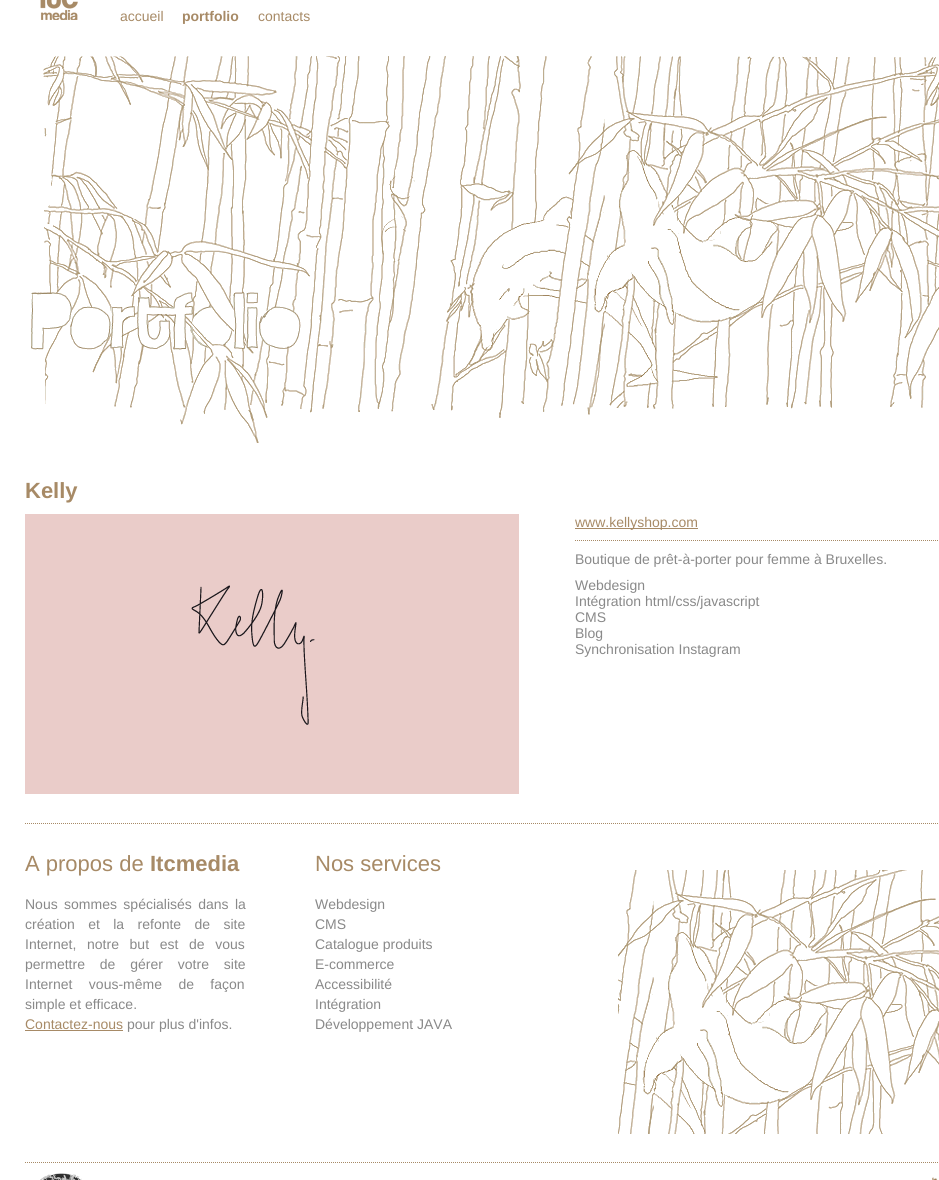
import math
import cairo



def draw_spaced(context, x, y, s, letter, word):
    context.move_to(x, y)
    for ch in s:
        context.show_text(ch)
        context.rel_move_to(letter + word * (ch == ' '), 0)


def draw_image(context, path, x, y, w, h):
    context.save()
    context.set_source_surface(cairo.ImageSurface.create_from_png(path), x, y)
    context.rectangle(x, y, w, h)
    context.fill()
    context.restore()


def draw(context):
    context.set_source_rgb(1, 1, 1)
    context.paint()
    draw_image(context, "images/1.png", 31, 56, 908, 387)
    draw_image(context, "images/2.png", 40, 0, 38, 20)
    draw_image(context, "images/3.png", 25, 514, 494, 280)
    context.new_path()
    context.move_to(575, 540.5)
    context.line_to(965, 540.5)
    context.set_source_rgb(167 / 255, 138 / 255, 102 / 255)
    context.set_line_width(1)
    context.set_dash([1, 1])
    context.stroke()
    context.rectangle(575, 528, 123, 1)
    context.fill()
    draw_image(context, "images/4.png", 618, 870, 321, 264)
    context.new_path()
    context.move_to(25, 823.5)
    context.line_to(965, 823.5)
    context.stroke()
    context.rectangle(25, 1030, 98, 1)
    context.fill()
    draw_image(context, "images/5.png", 932, 1177, 6, 3)
    context.new_path()
    context.move_to(25, 1162.5)
    context.line_to(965, 1162.5)
    context.stroke()
    draw_image(context, "images/6.png", 40, 1173, 42, 7)
    context.select_font_face("Liberation Sans")
    context.set_font_size(14)
    context.move_to(120, 21)
    context.show_text("accueil")
    context.select_font_face("Liberation Sans", cairo.FontSlant.NORMAL, cairo.FontWeight.BOLD)
    context.move_to(182, 21)
    context.show_text("portfolio")
    context.select_font_face("Liberation Sans")
    context.move_to(258, 21)
    context.show_text("contacts")
    context.select_font_face("Liberation Sans", cairo.FontSlant.NORMAL, cairo.FontWeight.BOLD)
    context.set_font_size(22)
    context.move_to(25, 498)
    context.show_text("Kelly")
    context.select_font_face("Liberation Sans")
    context.set_font_size(14)
    context.move_to(575, 527)
    context.show_text("www.kellyshop.com")
    context.set_source_rgb(137 / 255, 137 / 255, 137 / 255)
    context.move_to(575, 564)
    context.show_text("Boutique de prêt-à-porter pour femme à Bruxelles.")
    context.move_to(575, 590)
    context.show_text("Webdesign")
    context.move_to(575, 606)
    context.show_text("Intégration html/css/javascript")
    context.move_to(575, 622)
    context.show_text("CMS")
    context.move_to(575, 638)
    context.show_text("Blog")
    context.move_to(575, 654)
    context.show_text("Synchronisation Instagram")
    context.set_font_size(22)
    context.set_source_rgb(167 / 255, 138 / 255, 102 / 255)
    context.move_to(25, 871)
    context.show_text("A propos de")
    context.select_font_face("Liberation Sans", cairo.FontSlant.NORMAL, cairo.FontWeight.BOLD)
    context.move_to(150, 871)
    context.show_text("Itcmedia")
    context.select_font_face("Liberation Sans")
    context.set_font_size(14)
    context.set_source_rgb(137 / 255, 137 / 255, 137 / 255)
    draw_spaced(context, 25, 909, "Nous sommes spécialisés dans la", 0, 2.5)
    draw_spaced(context, 25, 929, "création et la refonte de site", 0, 9.5)
    draw_spaced(context, 25, 949, "Internet, notre but est de vous", 0, 6.75)
    draw_spaced(context, 25, 969, "permettre de gérer votre site", 0, 11)
    draw_spaced(context, 25, 989, "Internet vous-même de façon", 0, 12.5)
    context.move_to(25, 1009)
    context.show_text("simple et efficace.")
    context.set_source_rgb(167 / 255, 138 / 255, 102 / 255)
    context.move_to(25, 1029)
    context.show_text("Contactez-nous")
    context.set_source_rgb(137 / 255, 137 / 255, 137 / 255)
    context.move_to(127, 1029)
    context.show_text("pour plus d'infos.")
    context.set_font_size(22)
    context.set_source_rgb(167 / 255, 138 / 255, 102 / 255)
    context.move_to(315, 871)
    context.show_text("Nos services")
    context.set_font_size(14)
    context.set_source_rgb(137 / 255, 137 / 255, 137 / 255)
    context.move_to(315, 909)
    context.show_text("Webdesign")
    context.move_to(315, 929)
    context.show_text("CMS")
    context.move_to(315, 949)
    context.show_text("Catalogue produits")
    context.move_to(315, 969)
    context.show_text("E-commerce")
    context.move_to(315, 989)
    context.show_text("Accessibilité")
    context.move_to(315, 1009)
    context.show_text("Intégration")
    context.move_to(315, 1029)
    context.show_text("Développement JAVA")


surface = cairo.ImageSurface(cairo.Format.RGB24, 939, 1180)
context = cairo.Context(surface)
options = cairo.FontOptions()
options.set_hint_metrics(cairo.HintMetrics.OFF)
options.set_hint_style(cairo.HintStyle.NONE)
context.set_font_options(options)
context.set_miter_limit(4)
draw(context)
surface.write_to_png("out.png")
